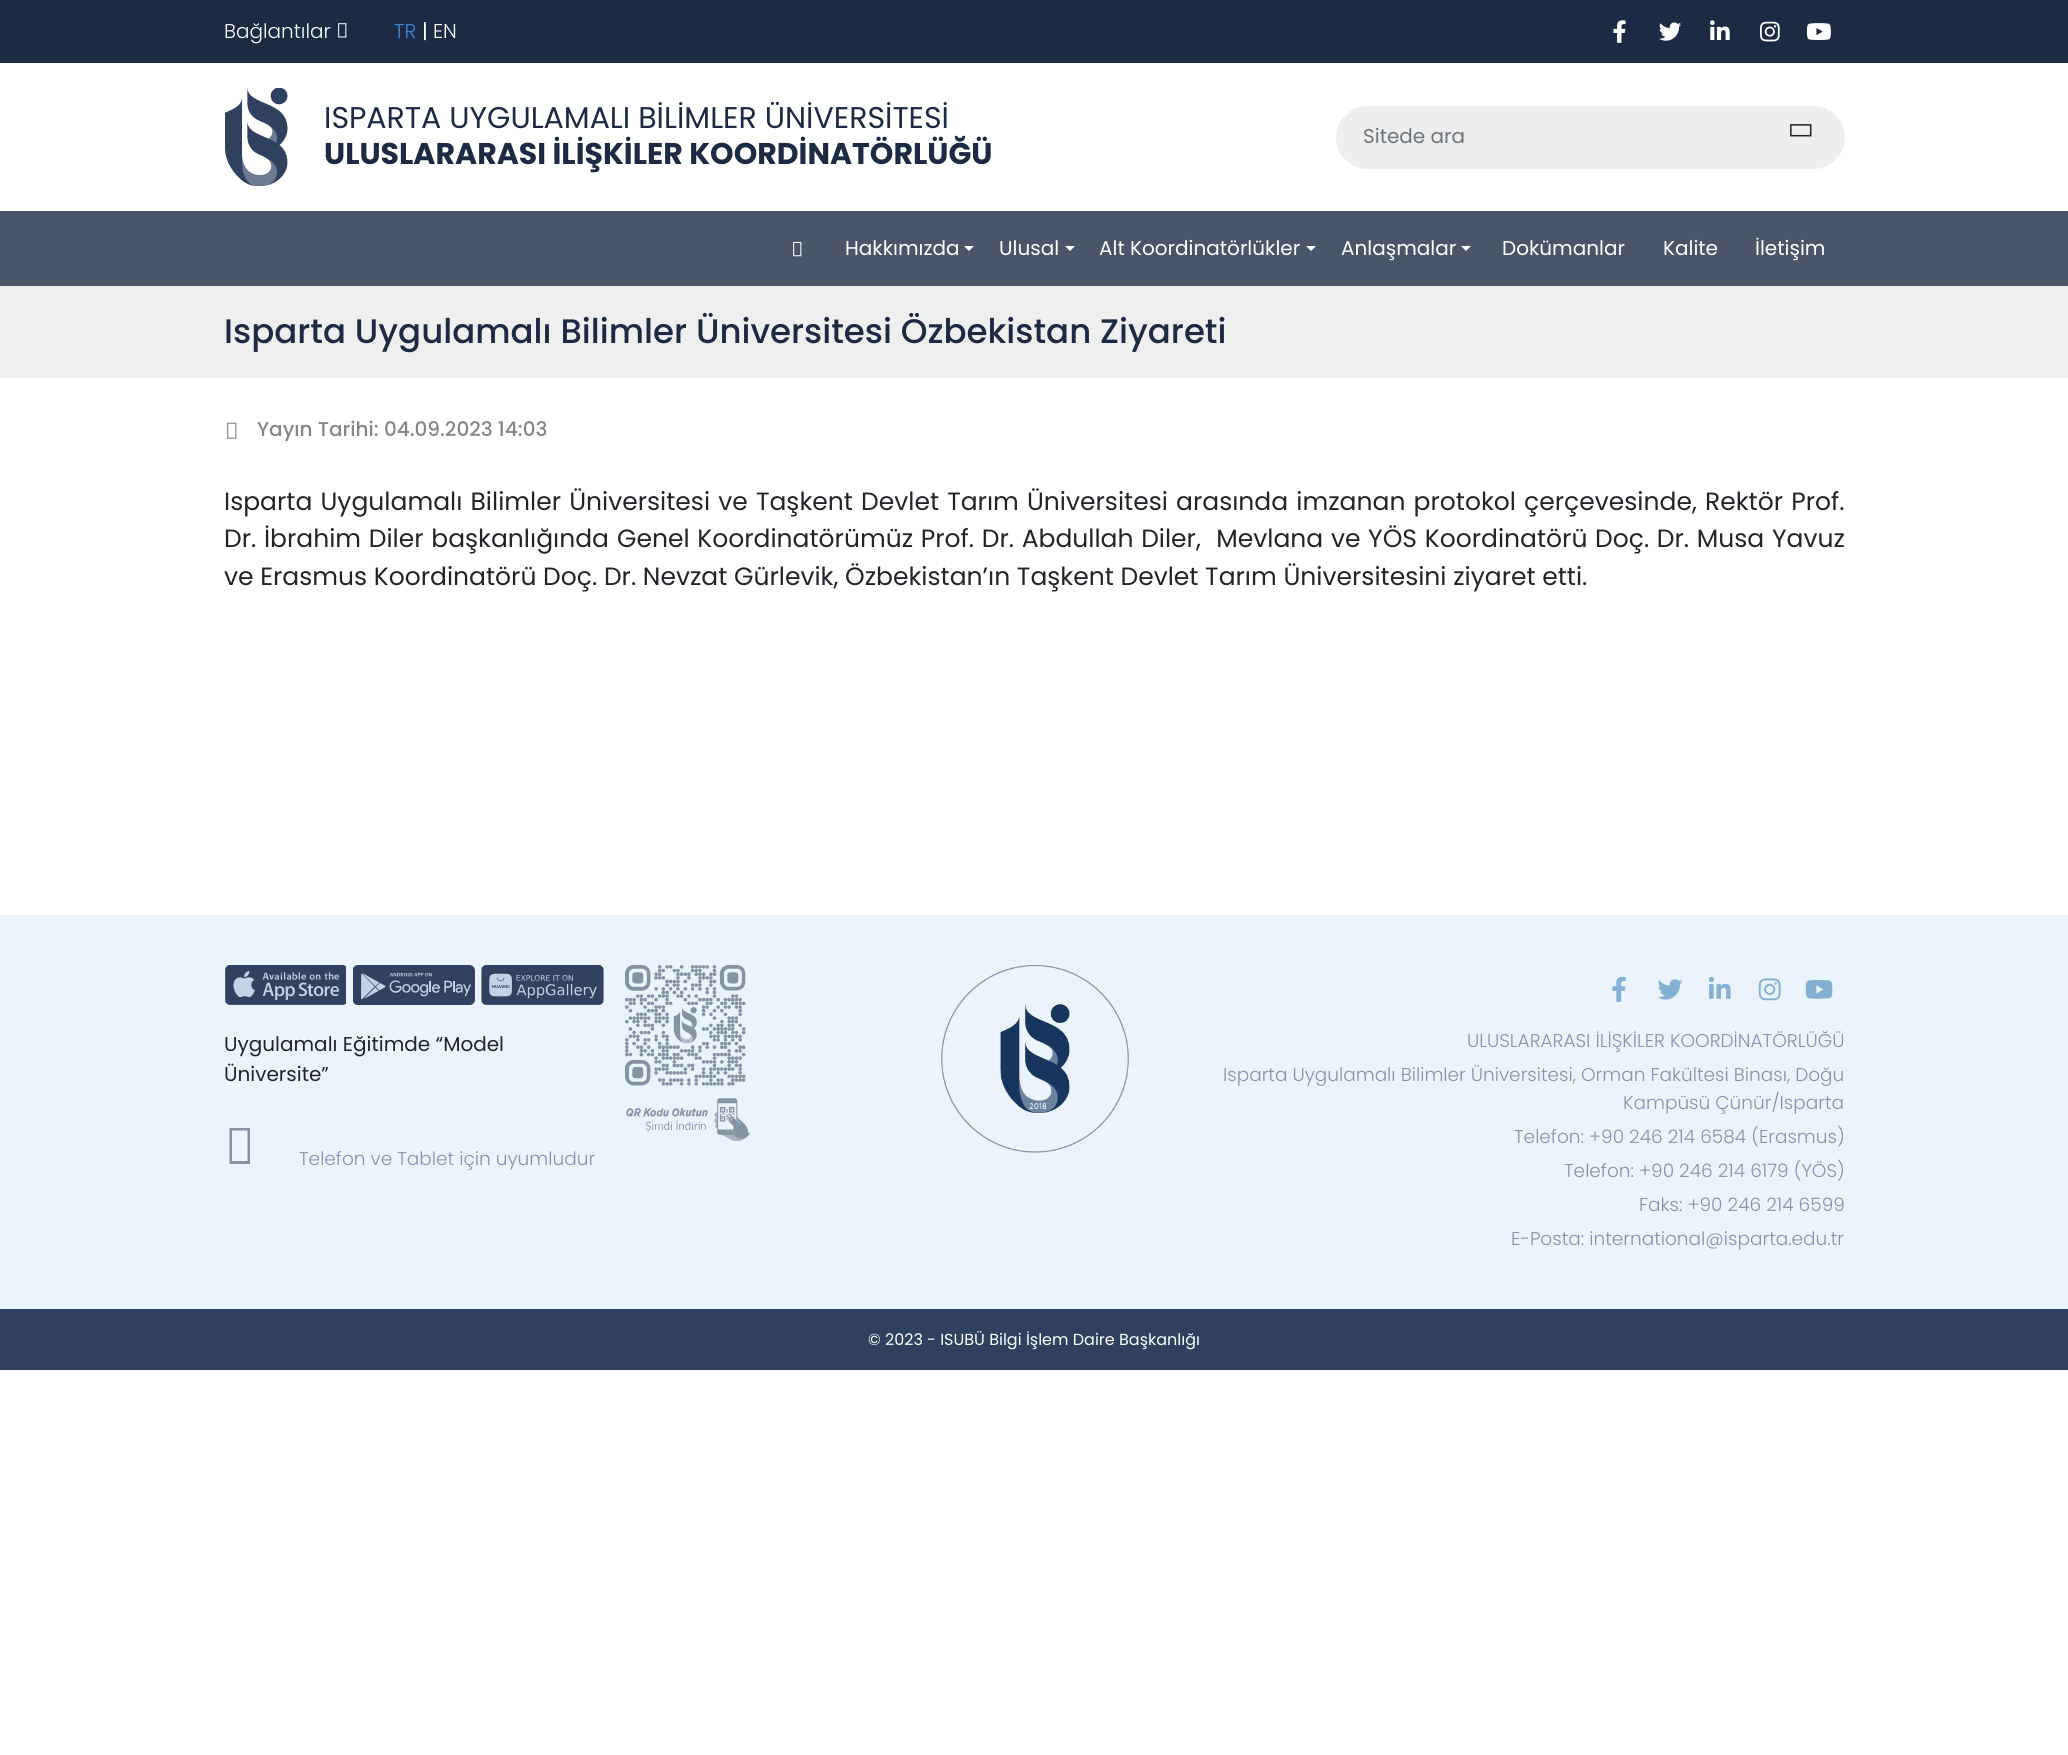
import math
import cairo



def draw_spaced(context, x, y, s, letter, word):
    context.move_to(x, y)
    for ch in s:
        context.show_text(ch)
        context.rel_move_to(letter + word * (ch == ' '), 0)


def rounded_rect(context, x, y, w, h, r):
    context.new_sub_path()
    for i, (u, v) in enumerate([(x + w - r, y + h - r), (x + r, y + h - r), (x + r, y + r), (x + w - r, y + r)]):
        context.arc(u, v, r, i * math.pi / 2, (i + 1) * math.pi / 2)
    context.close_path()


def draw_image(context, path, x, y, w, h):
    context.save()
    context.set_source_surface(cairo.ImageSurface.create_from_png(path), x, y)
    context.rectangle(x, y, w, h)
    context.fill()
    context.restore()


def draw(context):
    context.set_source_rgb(1, 1, 1)
    context.paint()
    context.set_source_rgb(28 / 255, 42 / 255, 68 / 255)
    context.rectangle(0, 0, 2068, 63)
    context.fill()
    draw_image(context, "images/1.png", 338, 23, 9, 15)
    draw_image(context, "images/2.png", 1613, 20, 13, 23)
    draw_image(context, "images/3.png", 1659, 22, 23, 19)
    draw_image(context, "images/4.png", 1710, 20, 20, 20)
    draw_image(context, "images/5.png", 1760, 21, 20, 21)
    draw_image(context, "images/6.png", 1806, 23, 25, 17)
    draw_image(context, "images/7.png", 225, 88, 63, 98)
    context.set_source_rgb(238 / 255, 238 / 255, 238 / 255)
    rounded_rect(context, 1336, 106, 509, 63, 31.5)
    context.fill()
    draw_image(context, "images/8.png", 1790, 124, 22, 13)
    context.set_source_rgb(74 / 255, 85 / 255, 106 / 255)
    context.rectangle(0, 211, 2068, 75)
    context.fill()
    draw_image(context, "images/9.png", 793, 241, 9, 16)
    context.set_source_rgb(1, 1, 1)
    context.new_path()
    context.move_to(964, 246)
    context.line_to(974, 246)
    context.line_to(969, 251)
    context.close_path()
    context.fill()
    context.new_path()
    context.move_to(1065, 246)
    context.line_to(1075, 246)
    context.line_to(1070, 251)
    context.close_path()
    context.fill()
    context.new_path()
    context.move_to(1306, 246)
    context.line_to(1316, 246)
    context.line_to(1311, 251)
    context.close_path()
    context.fill()
    context.new_path()
    context.move_to(1461, 246)
    context.line_to(1471, 246)
    context.line_to(1466, 251)
    context.close_path()
    context.fill()
    context.set_source_rgb(239 / 255, 239 / 255, 239 / 255)
    context.rectangle(0, 286, 2068, 92)
    context.fill()
    draw_image(context, "images/10.png", 227, 422, 10, 17)
    context.set_source_rgb(235 / 255, 244 / 255, 252 / 255)
    context.rectangle(0, 915, 2068, 394)
    context.fill()
    draw_image(context, "images/11.png", 225, 965, 121, 40)
    draw_image(context, "images/12.png", 353, 965, 122, 40)
    draw_image(context, "images/13.png", 481, 965, 123, 40)
    context.set_source_rgb(133 / 255, 148 / 255, 163 / 255)
    context.new_path()
    context.move_to(229.5, 1164)
    context.line_to(229.5, 1128)
    context.line_to(250, 1128)
    context.line_to(250, 1164)
    context.close_path()
    context.move_to(232, 1161)
    context.line_to(247.5, 1161)
    context.line_to(247.5, 1130.5)
    context.line_to(232, 1130.5)
    context.close_path()
    context.fill()
    draw_image(context, "images/14.png", 625, 965, 125, 176)
    draw_image(context, "images/15.png", 941, 965, 188, 188)
    draw_image(context, "images/16.png", 1612, 976, 14, 26)
    draw_image(context, "images/17.png", 1657, 979, 26, 21)
    draw_image(context, "images/18.png", 1708, 976, 23, 23)
    draw_image(context, "images/19.png", 1758, 978, 23, 23)
    draw_image(context, "images/20.png", 1805, 980, 28, 19)
    context.set_source_rgb(47 / 255, 65 / 255, 95 / 255)
    context.rectangle(0, 1309, 2068, 61)
    context.fill()
    context.select_font_face("Poppins Light")
    context.set_font_size(20)
    context.set_source_rgb(1, 1, 1)
    context.move_to(224, 38)
    context.show_text("Bağlantılar")
    context.set_source_rgb(60 / 255, 136 / 255, 211 / 255)
    context.move_to(394, 38)
    context.show_text("TR")
    context.select_font_face("Poppins")
    context.set_source_rgb(1, 1, 1)
    context.move_to(422, 38)
    context.show_text("|")
    context.select_font_face("Poppins Light")
    context.move_to(433, 38)
    context.show_text("EN")
    context.select_font_face("Poppins")
    context.set_font_size(30)
    context.set_source_rgb(28 / 255, 42 / 255, 68 / 255)
    context.move_to(324, 128)
    context.show_text("ISPARTA UYGULAMALI BİLİMLER ÜNİVERSİTESİ")
    context.select_font_face("Poppins", cairo.FontSlant.NORMAL, cairo.FontWeight.BOLD)
    context.move_to(324, 164)
    context.show_text("ULUSLARARASI İLİŞKİLER KOORDİNATÖRLÜĞÜ")
    context.select_font_face("Poppins")
    context.set_font_size(20)
    context.set_source_rgb(108 / 255, 117 / 255, 125 / 255)
    context.move_to(1363, 143)
    context.show_text("Sitede ara")
    context.set_source_rgb(1, 1, 1)
    context.move_to(845, 255)
    context.show_text("Hakkımızda")
    context.move_to(999, 255)
    context.show_text("Ulusal")
    context.move_to(1099, 255)
    context.show_text("Alt Koordinatörlükler")
    context.move_to(1341, 255)
    context.show_text("Anlaşmalar")
    context.move_to(1502, 255)
    context.show_text("Dokümanlar")
    context.move_to(1663, 255)
    context.show_text("Kalite")
    context.move_to(1755, 255)
    context.show_text("İletişim")
    context.select_font_face("Poppins Medium")
    context.set_font_size(34)
    context.set_source_rgb(28 / 255, 42 / 255, 68 / 255)
    context.move_to(224, 343)
    context.show_text("Isparta Uygulamalı Bilimler Üniversitesi Özbekistan Ziyareti")
    context.set_font_size(20)
    context.set_source_rgb(134 / 255, 134 / 255, 134 / 255)
    context.move_to(257, 436)
    context.show_text("Yayın Tarihi: 04.09.2023 14:03")
    context.select_font_face("Poppins")
    context.set_font_size(25)
    context.set_source_rgb(33 / 255, 37 / 255, 41 / 255)
    draw_spaced(context, 224, 510, "Isparta Uygulamalı Bilimler Üniversitesi ve Taşkent Devlet Tarım Üniversitesi arasında imzanan protokol çerçevesinde,", 0, 1.5)
    draw_spaced(context, 1705, 510, "Rektör Prof.", 0, 1.5)
    draw_spaced(context, 224, 547, "Dr. İbrahim Diler başkanlığında", 0, 1)
    draw_spaced(context, 617, 547, "Genel Koordinatörümüz Prof. Dr. Abdullah Diler,  Mevlana ve YÖS Koordinatörü Doç. Dr. Musa Yavuz", 0, 1)
    context.move_to(224, 585)
    context.show_text("ve Erasmus Koordinatörü Doç. Dr. Nevzat Gürlevik, Özbekistan’ın Taşkent Devlet Tarım Üniversitesini ziyaret etti.")
    context.set_font_size(20)
    context.move_to(224, 1051)
    context.show_text("Uygulamalı Eğitimde “Model")
    context.move_to(224, 1081)
    context.show_text("Üniversite”")
    context.select_font_face("Poppins Light")
    context.set_font_size(18.5)
    context.set_source_rgb(133 / 255, 148 / 255, 163 / 255)
    context.move_to(299, 1165)
    context.show_text("Telefon ve Tablet için uyumludur")
    context.move_to(1467, 1047)
    context.show_text("ULUSLARARASI İLİŞKİLER KOORDİNATÖRLÜĞÜ")
    context.move_to(1223, 1081)
    context.show_text("Isparta Uygulamalı Bilimler Üniversitesi, Orman Fakültesi Binası, Doğu")
    context.move_to(1623, 1109)
    context.show_text("Kampüsü Çünür/Isparta")
    context.move_to(1514, 1143)
    context.show_text("Telefon: +90 246 214 6584 (Erasmus)")
    context.move_to(1564, 1177)
    context.show_text("Telefon: +90 246 214 6179 (YÖS)")
    context.move_to(1639, 1211)
    context.show_text("Faks: +90 246 214 6599")
    context.move_to(1511, 1245)
    context.show_text("E-Posta: international@isparta.edu.tr")
    context.select_font_face("Poppins")
    context.set_font_size(16)
    context.set_source_rgb(1, 1, 1)
    context.move_to(868, 1345)
    context.show_text("© 2023 - ISUBÜ Bilgi İşlem Daire Başkanlığı")


surface = cairo.ImageSurface(cairo.Format.RGB24, 2068, 1755)
context = cairo.Context(surface)
options = cairo.FontOptions()
options.set_hint_metrics(cairo.HintMetrics.OFF)
options.set_hint_style(cairo.HintStyle.NONE)
context.set_font_options(options)
context.set_miter_limit(4)
draw(context)
surface.write_to_png("out.png")
